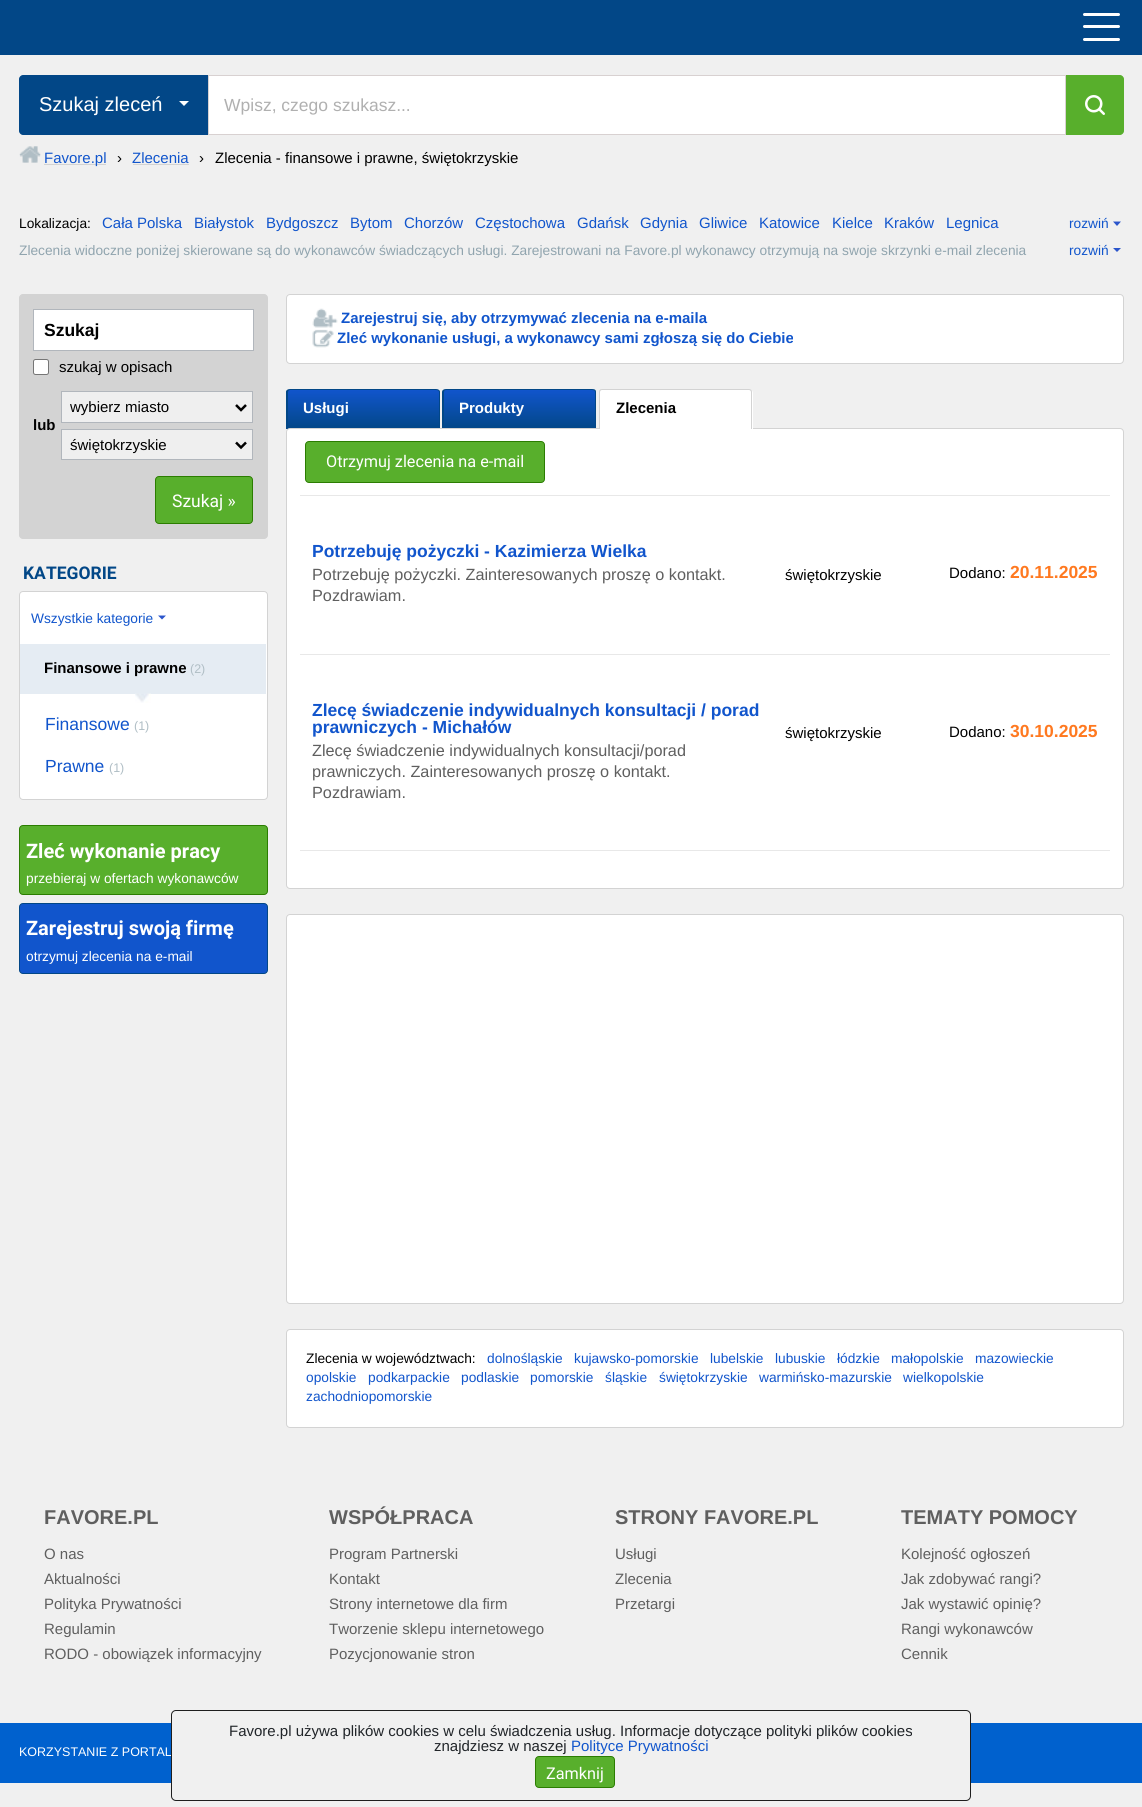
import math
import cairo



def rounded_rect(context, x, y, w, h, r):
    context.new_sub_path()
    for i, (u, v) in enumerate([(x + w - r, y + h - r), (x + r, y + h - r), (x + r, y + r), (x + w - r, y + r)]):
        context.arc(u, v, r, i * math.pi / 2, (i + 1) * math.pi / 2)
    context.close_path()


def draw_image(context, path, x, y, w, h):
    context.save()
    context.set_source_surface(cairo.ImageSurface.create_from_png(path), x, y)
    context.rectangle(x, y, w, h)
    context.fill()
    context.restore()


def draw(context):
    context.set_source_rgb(240 / 255, 240 / 255, 240 / 255)
    context.paint()
    context.set_source_rgb(2 / 255, 71 / 255, 135 / 255)
    context.rectangle(0, 0, 1142, 55)
    context.fill()
    context.set_source_rgb(1, 1, 1)
    rounded_rect(context, 1083, 13, 37, 3, 1.5)
    context.fill()
    rounded_rect(context, 1083, 25, 37, 3, 1.5)
    context.fill()
    rounded_rect(context, 1083, 38, 37, 3, 1.5)
    context.fill()
    context.set_source_rgb(2 / 255, 71 / 255, 135 / 255)
    context.new_path()
    context.move_to(23, 75)
    context.line_to(209, 75)
    context.line_to(209, 135)
    context.line_to(23, 135)
    context.curve_to(21, 135, 19, 133, 19, 131)
    context.line_to(19, 79)
    context.curve_to(19, 77, 21, 75, 23, 75)
    context.close_path()
    context.fill()
    context.set_source_rgb(1, 1, 1)
    context.new_path()
    context.move_to(179, 101)
    context.line_to(189, 101)
    context.line_to(184, 106)
    context.close_path()
    context.fill()
    context.rectangle(208.5, 75.5, 857, 59)
    context.fill_preserve()
    context.set_source_rgb(216 / 255, 209 / 255, 209 / 255)
    context.set_line_width(1)
    context.stroke()
    context.set_source_rgb(88 / 255, 175 / 255, 44 / 255)
    context.new_path()
    context.move_to(1066, 75)
    context.line_to(1120, 75)
    context.curve_to(1122, 75, 1124, 77, 1124, 79)
    context.line_to(1124, 131)
    context.curve_to(1124, 133, 1122, 135, 1120, 135)
    context.line_to(1066, 135)
    context.close_path()
    context.fill()
    draw_image(context, "images/1.png", 1085, 95, 20, 20)
    draw_image(context, "images/2.png", 19, 146, 22, 17)
    context.set_source_rgb(211 / 255, 211 / 255, 211 / 255)
    context.rectangle(44, 164, 62, 1)
    context.fill()
    context.rectangle(133, 164, 56, 1)
    context.fill()
    context.set_source_rgb(43 / 255, 85 / 255, 203 / 255)
    context.new_path()
    context.move_to(1113, 221.5)
    context.line_to(1117, 226)
    context.line_to(1121, 221.5)
    context.close_path()
    context.fill()
    context.new_path()
    context.move_to(1113, 248)
    context.line_to(1117, 252)
    context.line_to(1121, 248)
    context.close_path()
    context.fill()
    context.set_source_rgb(211 / 255, 211 / 255, 211 / 255)
    rounded_rect(context, 19.5, 294.5, 248, 244, 3.5)
    context.fill_preserve()
    context.stroke()
    context.set_source_rgb(1, 1, 1)
    context.rectangle(33.5, 309.5, 220, 41)
    context.fill_preserve()
    context.set_source_rgb(177 / 255, 182 / 255, 188 / 255)
    context.stroke()
    context.set_source_rgb(1, 1, 1)
    rounded_rect(context, 33.5, 359.5, 15, 15, 2)
    context.fill_preserve()
    context.set_source_rgb(118 / 255, 118 / 255, 118 / 255)
    context.stroke()
    context.set_source_rgb(239 / 255, 239 / 255, 239 / 255)
    context.rectangle(61.5, 391.5, 191, 31)
    context.fill_preserve()
    context.set_source_rgb(177 / 255, 182 / 255, 188 / 255)
    context.stroke()
    context.new_path()
    context.move_to(236, 405)
    context.line_to(241, 410)
    context.line_to(246, 405)
    context.set_source_rgb(0, 0, 0)
    context.set_line_width(2.5)
    context.stroke()
    context.set_source_rgb(239 / 255, 239 / 255, 239 / 255)
    context.rectangle(61.5, 429.5, 191, 30)
    context.fill_preserve()
    context.set_source_rgb(177 / 255, 182 / 255, 188 / 255)
    context.set_line_width(1)
    context.stroke()
    context.new_path()
    context.move_to(236, 442.5)
    context.line_to(241, 447.5)
    context.line_to(246, 442.5)
    context.set_source_rgb(0, 0, 0)
    context.set_line_width(2.5)
    context.stroke()
    context.set_source_rgb(88 / 255, 175 / 255, 44 / 255)
    rounded_rect(context, 155.5, 476.5, 97, 47, 3.5)
    context.fill_preserve()
    context.set_source_rgb(43 / 255, 125 / 255, 1 / 255)
    context.set_line_width(1)
    context.stroke()
    context.set_source_rgb(1, 1, 1)
    rounded_rect(context, 19.5, 591.5, 248, 208, 3.5)
    context.fill_preserve()
    context.set_source_rgb(211 / 255, 211 / 255, 211 / 255)
    context.stroke()
    context.set_source_rgb(43 / 255, 85 / 255, 203 / 255)
    context.new_path()
    context.move_to(158, 615.5)
    context.line_to(162, 619.5)
    context.line_to(166, 615.5)
    context.close_path()
    context.fill()
    context.set_source_rgb(229 / 255, 236 / 255, 243 / 255)
    context.rectangle(20, 644, 246, 50)
    context.fill()
    draw_image(context, "images/3.png", 135, 693, 16, 10)
    context.set_source_rgb(88 / 255, 175 / 255, 44 / 255)
    rounded_rect(context, 19.5, 825.5, 248, 69, 3.5)
    context.fill_preserve()
    context.set_source_rgb(43 / 255, 125 / 255, 1 / 255)
    context.stroke()
    context.set_source_rgb(17 / 255, 85 / 255, 204 / 255)
    rounded_rect(context, 19.5, 903.5, 248, 70, 3.5)
    context.fill_preserve()
    context.set_source_rgb(2 / 255, 71 / 255, 135 / 255)
    context.stroke()
    context.set_source_rgb(1, 1, 1)
    rounded_rect(context, 286.5, 294.5, 837, 69, 3.5)
    context.fill_preserve()
    context.set_source_rgb(211 / 255, 211 / 255, 211 / 255)
    context.stroke()
    draw_image(context, "images/4.png", 312, 308, 26, 20)
    draw_image(context, "images/5.png", 312, 329, 22, 19)
    context.save()
    context.new_path()
    context.move_to(290, 389)
    context.line_to(436, 389)
    context.curve_to(438, 389, 440, 391, 440, 393)
    context.line_to(440, 429)
    context.line_to(286, 429)
    context.line_to(286, 393)
    context.curve_to(286, 391, 288, 389, 290, 389)
    context.close_path()
    context.clip()
    gradient = cairo.LinearGradient(363, 390, 363, 429)
    gradient.add_color_stop_rgba(0, 17 / 255, 85 / 255, 204 / 255, 1)
    gradient.add_color_stop_rgba(1, 2 / 255, 71 / 255, 135 / 255, 1)
    context.set_source(gradient)
    context.rectangle(286, 390, 154, 39)
    context.fill()
    context.restore()
    context.set_source_rgb(2 / 255, 71 / 255, 135 / 255)
    context.set_fill_rule(cairo.FillRule.EVEN_ODD)
    context.new_path()
    context.move_to(290, 389)
    context.line_to(436, 389)
    context.curve_to(438, 389, 440, 390, 440, 392)
    context.line_to(440, 429)
    context.line_to(286, 429)
    context.line_to(286, 392)
    context.curve_to(286, 390, 288, 389, 290, 389)
    context.close_path()
    context.move_to(290, 390)
    context.line_to(436, 390)
    context.curve_to(438, 390, 439, 391, 439, 392)
    context.line_to(439, 429)
    context.line_to(288, 429)
    context.line_to(288, 392)
    context.curve_to(288, 391, 289, 390, 290, 390)
    context.close_path()
    context.fill()
    context.save()
    context.set_fill_rule(cairo.FillRule.WINDING)
    context.new_path()
    context.move_to(447, 389)
    context.line_to(592, 389)
    context.curve_to(594, 389, 596, 391, 596, 393)
    context.line_to(596, 429)
    context.line_to(443, 429)
    context.line_to(443, 393)
    context.curve_to(443, 391, 445, 389, 447, 389)
    context.close_path()
    context.clip()
    gradient = cairo.LinearGradient(519, 390, 519, 429)
    gradient.add_color_stop_rgba(0, 17 / 255, 85 / 255, 204 / 255, 1)
    gradient.add_color_stop_rgba(1, 2 / 255, 71 / 255, 135 / 255, 1)
    context.set_source(gradient)
    context.rectangle(444, 390, 152, 38)
    context.fill()
    context.restore()
    context.new_path()
    context.move_to(446, 389)
    context.line_to(592, 389)
    context.curve_to(595, 389, 596, 390, 596, 392)
    context.line_to(596, 429)
    context.line_to(442, 429)
    context.line_to(442, 392)
    context.curve_to(442, 390, 444, 389, 446, 389)
    context.close_path()
    context.move_to(446, 390)
    context.line_to(592, 390)
    context.curve_to(594, 390, 595, 391, 595, 392)
    context.line_to(595, 429)
    context.line_to(444, 429)
    context.line_to(444, 392)
    context.curve_to(444, 391, 445, 390, 446, 390)
    context.close_path()
    context.fill()
    context.set_source_rgb(1, 1, 1)
    rounded_rect(context, 286.5, 428.5, 837, 460, 3.5)
    context.fill_preserve()
    context.set_source_rgb(211 / 255, 211 / 255, 211 / 255)
    context.stroke()
    context.set_source_rgb(1, 1, 1)
    context.new_path()
    context.move_to(603, 389)
    context.line_to(749, 389)
    context.curve_to(751, 389, 753, 391, 753, 393)
    context.line_to(753, 429)
    context.line_to(599, 429)
    context.line_to(599, 393)
    context.curve_to(599, 391, 601, 389, 603, 389)
    context.close_path()
    context.fill()
    context.set_source_rgb(211 / 255, 211 / 255, 211 / 255)
    context.new_path()
    context.move_to(602, 389)
    context.line_to(749, 389)
    context.curve_to(751, 389, 752, 390, 752, 392)
    context.line_to(752, 429)
    context.line_to(599, 429)
    context.line_to(599, 392)
    context.curve_to(599, 390, 600, 389, 602, 389)
    context.close_path()
    context.move_to(602, 390)
    context.line_to(749, 390)
    context.curve_to(750, 390, 751, 391, 751, 392)
    context.line_to(751, 429)
    context.line_to(600, 429)
    context.line_to(600, 392)
    context.curve_to(600, 391, 601, 390, 602, 390)
    context.close_path()
    context.fill()
    context.set_source_rgb(232 / 255, 232 / 255, 232 / 255)
    context.rectangle(300, 495, 810, 1)
    context.fill()
    context.set_source_rgb(88 / 255, 175 / 255, 44 / 255)
    rounded_rect(context, 305.5, 441.5, 239, 41, 3.5)
    context.fill_preserve()
    context.set_source_rgb(43 / 255, 125 / 255, 1 / 255)
    context.stroke()
    context.set_source_rgb(232 / 255, 232 / 255, 232 / 255)
    context.rectangle(300, 654, 810, 1)
    context.fill()
    context.rectangle(300, 850, 810, 1)
    context.fill()
    context.set_source_rgb(1, 1, 1)
    rounded_rect(context, 286.5, 914.5, 837, 389, 3.5)
    context.fill_preserve()
    context.set_source_rgb(211 / 255, 211 / 255, 211 / 255)
    context.stroke()
    context.set_source_rgb(1, 1, 1)
    rounded_rect(context, 286.5, 1329.5, 837, 98, 3.5)
    context.fill_preserve()
    context.set_source_rgb(211 / 255, 211 / 255, 211 / 255)
    context.stroke()
    context.set_source_rgb(0, 97 / 255, 206 / 255)
    context.rectangle(0, 1723, 1142, 60)
    context.fill()
    context.select_font_face("Liberation Sans")
    context.set_font_size(20)
    context.set_source_rgb(1, 1, 1)
    context.move_to(39, 111)
    context.show_text("Szukaj zleceń")
    context.set_font_size(17.5)
    context.set_source_rgb(176 / 255, 176 / 255, 176 / 255)
    context.move_to(224, 111)
    context.show_text("Wpisz, czego szukasz...")
    context.set_font_size(15)
    context.set_source_rgb(17 / 255, 85 / 255, 204 / 255)
    context.move_to(44, 163)
    context.show_text("Favore.pl")
    context.set_source_rgb(0, 0, 0)
    context.move_to(117, 163)
    context.show_text("›")
    context.set_source_rgb(17 / 255, 85 / 255, 204 / 255)
    context.move_to(132, 163)
    context.show_text("Zlecenia")
    context.set_source_rgb(0, 0, 0)
    context.move_to(199, 163)
    context.show_text("›")
    context.move_to(215, 163)
    context.show_text("Zlecenia - finansowe i prawne, świętokrzyskie")
    context.set_font_size(13.75)
    context.move_to(19, 228)
    context.show_text("Lokalizacja:")
    context.set_font_size(15)
    context.set_source_rgb(17 / 255, 85 / 255, 204 / 255)
    context.move_to(102, 228)
    context.show_text("Cała Polska")
    context.move_to(194, 228)
    context.show_text("Białystok")
    context.move_to(266, 228)
    context.show_text("Bydgoszcz")
    context.move_to(350, 228)
    context.show_text("Bytom")
    context.move_to(404, 228)
    context.show_text("Chorzów")
    context.move_to(475, 228)
    context.show_text("Częstochowa")
    context.move_to(577, 228)
    context.show_text("Gdańsk")
    context.move_to(640, 228)
    context.show_text("Gdynia")
    context.move_to(699, 228)
    context.show_text("Gliwice")
    context.move_to(759, 228)
    context.show_text("Katowice")
    context.move_to(832, 228)
    context.show_text("Kielce")
    context.move_to(884, 228)
    context.show_text("Kraków")
    context.move_to(946, 228)
    context.show_text("Legnica")
    context.set_font_size(13.75)
    context.move_to(1069, 228)
    context.show_text("rozwiń")
    context.set_source_rgb(144 / 255, 164 / 255, 174 / 255)
    context.move_to(19, 255)
    context.show_text("Zlecenia widoczne poniżej skierowane są do wykonawców świadczących usługi. Zarejestrowani na Favore.pl wykonawcy otrzymują na swoje skrzynki e-mail zlecenia")
    context.set_source_rgb(17 / 255, 85 / 255, 204 / 255)
    context.move_to(1069, 255)
    context.show_text("rozwiń")
    context.select_font_face("Liberation Sans", cairo.FontSlant.NORMAL, cairo.FontWeight.BOLD)
    context.set_font_size(17.5)
    context.set_source_rgb(0, 0, 0)
    context.move_to(44, 336)
    context.show_text("Szukaj")
    context.select_font_face("Liberation Sans")
    context.set_font_size(15)
    context.move_to(59, 372)
    context.show_text("szukaj w opisach")
    context.select_font_face("Liberation Sans", cairo.FontSlant.NORMAL, cairo.FontWeight.BOLD)
    context.move_to(33, 430)
    context.show_text("lub")
    context.select_font_face("Liberation Sans")
    context.move_to(70, 412)
    context.show_text("wybierz miasto")
    context.move_to(70, 450)
    context.show_text("świętokrzyskie")
    context.select_font_face("Roboto")
    context.set_font_size(17.5)
    context.set_source_rgb(1, 1, 1)
    context.move_to(172, 507)
    context.show_text("Szukaj »")
    context.select_font_face("Roboto", cairo.FontSlant.NORMAL, cairo.FontWeight.BOLD)
    context.set_source_rgb(2 / 255, 71 / 255, 135 / 255)
    context.move_to(23, 579)
    context.show_text("KATEGORIE")
    context.select_font_face("Liberation Sans")
    context.set_font_size(13.75)
    context.set_source_rgb(17 / 255, 85 / 255, 204 / 255)
    context.move_to(31, 623)
    context.show_text("Wszystkie kategorie")
    context.select_font_face("Liberation Sans", cairo.FontSlant.NORMAL, cairo.FontWeight.BOLD)
    context.set_font_size(15)
    context.set_source_rgb(0, 0, 0)
    context.move_to(44, 673)
    context.show_text("Finansowe i prawne")
    context.select_font_face("Liberation Sans")
    context.set_font_size(12.5)
    context.set_source_rgb(176 / 255, 190 / 255, 197 / 255)
    context.move_to(190, 673)
    context.show_text("(2)")
    context.set_font_size(17.5)
    context.set_source_rgb(17 / 255, 85 / 255, 204 / 255)
    context.move_to(45, 730)
    context.show_text("Finansowe")
    context.set_font_size(12.5)
    context.set_source_rgb(176 / 255, 190 / 255, 197 / 255)
    context.move_to(134, 730)
    context.show_text("(1)")
    context.set_font_size(17.5)
    context.set_source_rgb(17 / 255, 85 / 255, 204 / 255)
    context.move_to(45, 772)
    context.show_text("Prawne")
    context.set_font_size(12.5)
    context.set_source_rgb(176 / 255, 190 / 255, 197 / 255)
    context.move_to(109, 772)
    context.show_text("(1)")
    context.select_font_face("Roboto", cairo.FontSlant.NORMAL, cairo.FontWeight.BOLD)
    context.set_font_size(20)
    context.set_source_rgb(1, 1, 1)
    context.move_to(26, 858)
    context.show_text("Zleć wykonanie pracy")
    context.select_font_face("Liberation Sans")
    context.set_font_size(13.75)
    context.move_to(26, 883)
    context.show_text("przebieraj w ofertach wykonawców")
    context.select_font_face("Roboto", cairo.FontSlant.NORMAL, cairo.FontWeight.BOLD)
    context.set_font_size(20)
    context.move_to(26, 935)
    context.show_text("Zarejestruj swoją firmę")
    context.select_font_face("Liberation Sans")
    context.set_font_size(13.75)
    context.move_to(26, 961)
    context.show_text("otrzymuj zlecenia na e-mail")
    context.select_font_face("Liberation Sans", cairo.FontSlant.NORMAL, cairo.FontWeight.BOLD)
    context.set_font_size(15)
    context.set_source_rgb(17 / 255, 85 / 255, 204 / 255)
    context.move_to(341, 323)
    context.show_text("Zarejestruj się, aby otrzymywać zlecenia na e-maila")
    context.move_to(337, 343)
    context.show_text("Zleć wykonanie usługi, a wykonawcy sami zgłoszą się do Ciebie")
    context.set_source_rgb(1, 1, 1)
    context.move_to(303, 413)
    context.show_text("Usługi")
    context.move_to(459, 413)
    context.show_text("Produkty")
    context.set_source_rgb(0, 0, 0)
    context.move_to(616, 413)
    context.show_text("Zlecenia")
    context.select_font_face("Roboto")
    context.set_font_size(16.25)
    context.set_source_rgb(1, 1, 1)
    context.move_to(326, 467)
    context.show_text("Otrzymuj zlecenia na e-mail")
    context.select_font_face("Liberation Sans", cairo.FontSlant.NORMAL, cairo.FontWeight.BOLD)
    context.set_font_size(17.5)
    context.set_source_rgb(17 / 255, 85 / 255, 204 / 255)
    context.move_to(312, 557)
    context.show_text("Potrzebuję pożyczki - Kazimierza Wielka")
    context.select_font_face("Liberation Sans")
    context.set_font_size(16.25)
    context.set_source_rgb(95 / 255, 95 / 255, 95 / 255)
    context.move_to(312, 580)
    context.show_text("Potrzebuję pożyczki. Zainteresowanych proszę o kontakt.")
    context.set_font_size(15)
    context.set_source_rgb(0, 0, 0)
    context.move_to(785, 580)
    context.show_text("świętokrzyskie")
    context.move_to(949, 578)
    context.show_text("Dodano:")
    context.select_font_face("Liberation Sans", cairo.FontSlant.NORMAL, cairo.FontWeight.BOLD)
    context.set_font_size(17.5)
    context.set_source_rgb(1, 121 / 255, 32 / 255)
    context.move_to(1010, 578)
    context.show_text("20.11.2025")
    context.select_font_face("Liberation Sans")
    context.set_font_size(16.25)
    context.set_source_rgb(95 / 255, 95 / 255, 95 / 255)
    context.move_to(312, 601)
    context.show_text("Pozdrawiam.")
    context.select_font_face("Liberation Sans", cairo.FontSlant.NORMAL, cairo.FontWeight.BOLD)
    context.set_font_size(17.5)
    context.set_source_rgb(17 / 255, 85 / 255, 204 / 255)
    context.move_to(312, 716)
    context.show_text("Zlecę świadczenie indywidualnych konsultacji / porad")
    context.move_to(312, 733)
    context.show_text("prawniczych - Michałów")
    context.select_font_face("Liberation Sans")
    context.set_font_size(15)
    context.set_source_rgb(0, 0, 0)
    context.move_to(785, 738)
    context.show_text("świętokrzyskie")
    context.move_to(949, 737)
    context.show_text("Dodano:")
    context.select_font_face("Liberation Sans", cairo.FontSlant.NORMAL, cairo.FontWeight.BOLD)
    context.set_font_size(17.5)
    context.set_source_rgb(1, 121 / 255, 32 / 255)
    context.move_to(1010, 737)
    context.show_text("30.10.2025")
    context.select_font_face("Liberation Sans")
    context.set_font_size(16.25)
    context.set_source_rgb(95 / 255, 95 / 255, 95 / 255)
    context.move_to(312, 756)
    context.show_text("Zlecę świadczenie indywidualnych konsultacji/porad")
    context.move_to(312, 777)
    context.show_text("prawniczych. Zainteresowanych proszę o kontakt.")
    context.move_to(312, 798)
    context.show_text("Pozdrawiam.")
    context.set_font_size(13.75)
    context.set_source_rgb(0, 0, 0)
    context.move_to(306, 1363)
    context.show_text("Zlecenia w województwach:")
    context.set_source_rgb(17 / 255, 85 / 255, 204 / 255)
    context.move_to(487, 1363)
    context.show_text("dolnośląskie")
    context.move_to(574, 1363)
    context.show_text("kujawsko-pomorskie")
    context.move_to(710, 1363)
    context.show_text("lubelskie")
    context.move_to(775, 1363)
    context.show_text("lubuskie")
    context.move_to(837, 1363)
    context.show_text("łódzkie")
    context.move_to(891, 1363)
    context.show_text("małopolskie")
    context.move_to(975, 1363)
    context.show_text("mazowieckie")
    context.move_to(306, 1382)
    context.show_text("opolskie")
    context.move_to(368, 1382)
    context.show_text("podkarpackie")
    context.move_to(461, 1382)
    context.show_text("podlaskie")
    context.move_to(530, 1382)
    context.show_text("pomorskie")
    context.move_to(605, 1382)
    context.show_text("śląskie")
    context.move_to(659, 1382)
    context.show_text("świętokrzyskie")
    context.move_to(759, 1382)
    context.show_text("warmińsko-mazurskie")
    context.move_to(903, 1382)
    context.show_text("wielkopolskie")
    context.move_to(306, 1401)
    context.show_text("zachodniopomorskie")
    context.select_font_face("Liberation Sans", cairo.FontSlant.NORMAL, cairo.FontWeight.BOLD)
    context.set_font_size(20)
    context.set_source_rgb(95 / 255, 95 / 255, 95 / 255)
    context.move_to(44, 1524)
    context.show_text("FAVORE.PL")
    context.select_font_face("Liberation Sans")
    context.set_font_size(15)
    context.move_to(44, 1559)
    context.show_text("O nas")
    context.move_to(44, 1584)
    context.show_text("Aktualności")
    context.move_to(44, 1609)
    context.show_text("Polityka Prywatności")
    context.move_to(44, 1634)
    context.show_text("Regulamin")
    context.move_to(44, 1659)
    context.show_text("RODO - obowiązek informacyjny")
    context.select_font_face("Liberation Sans", cairo.FontSlant.NORMAL, cairo.FontWeight.BOLD)
    context.set_font_size(20)
    context.move_to(329, 1524)
    context.show_text("WSPÓŁPRACA")
    context.select_font_face("Liberation Sans")
    context.set_font_size(15)
    context.move_to(329, 1559)
    context.show_text("Program Partnerski")
    context.move_to(329, 1584)
    context.show_text("Kontakt")
    context.move_to(329, 1609)
    context.show_text("Strony internetowe dla firm")
    context.move_to(329, 1634)
    context.show_text("Tworzenie sklepu internetowego")
    context.move_to(329, 1659)
    context.show_text("Pozycjonowanie stron")
    context.select_font_face("Liberation Sans", cairo.FontSlant.NORMAL, cairo.FontWeight.BOLD)
    context.set_font_size(20)
    context.move_to(615, 1524)
    context.show_text("STRONY FAVORE.PL")
    context.select_font_face("Liberation Sans")
    context.set_font_size(15)
    context.move_to(615, 1559)
    context.show_text("Usługi")
    context.move_to(615, 1584)
    context.show_text("Zlecenia")
    context.move_to(615, 1609)
    context.show_text("Przetargi")
    context.select_font_face("Liberation Sans", cairo.FontSlant.NORMAL, cairo.FontWeight.BOLD)
    context.set_font_size(20)
    context.move_to(901, 1524)
    context.show_text("TEMATY POMOCY")
    context.select_font_face("Liberation Sans")
    context.set_font_size(15)
    context.move_to(901, 1559)
    context.show_text("Kolejność ogłoszeń")
    context.move_to(901, 1584)
    context.show_text("Jak zdobywać rangi?")
    context.move_to(901, 1609)
    context.show_text("Jak wystawić opinię?")
    context.move_to(901, 1634)
    context.show_text("Rangi wykonawców")
    context.move_to(901, 1659)
    context.show_text("Cennik")
    context.set_font_size(12.5)
    context.set_source_rgb(1, 1, 1)
    context.move_to(19, 1756)
    context.show_text("KORZYSTANIE Z PORTAL")
    context.set_source_rgb(240 / 255, 240 / 255, 240 / 255)
    rounded_rect(context, 171.5, 1710.5, 799, 90, 4.5)
    context.fill_preserve()
    context.set_source_rgb(30 / 255, 30 / 255, 30 / 255)
    context.stroke()
    context.set_font_size(15)
    context.set_source_rgb(33 / 255, 37 / 255, 41 / 255)
    context.move_to(229, 1736)
    context.show_text("Favore.pl używa plików cookies w celu świadczenia usług. Informacje dotyczące polityki plików cookies")
    context.move_to(434, 1751)
    context.show_text("znajdziesz w naszej")
    context.set_source_rgb(17 / 255, 85 / 255, 204 / 255)
    context.move_to(571, 1751)
    context.show_text("Polityce Prywatności")
    context.set_source_rgb(88 / 255, 175 / 255, 44 / 255)
    rounded_rect(context, 535.5, 1756.5, 79, 31, 3.5)
    context.fill_preserve()
    context.set_source_rgb(43 / 255, 125 / 255, 1 / 255)
    context.stroke()
    context.select_font_face("Roboto")
    context.set_font_size(16.25)
    context.set_source_rgb(1, 1, 1)
    context.move_to(546, 1779)
    context.show_text("Zamknij")


surface = cairo.ImageSurface(cairo.Format.RGB24, 1142, 1807)
context = cairo.Context(surface)
options = cairo.FontOptions()
options.set_hint_metrics(cairo.HintMetrics.OFF)
options.set_hint_style(cairo.HintStyle.NONE)
context.set_font_options(options)
context.set_miter_limit(4)
draw(context)
surface.write_to_png("out.png")
